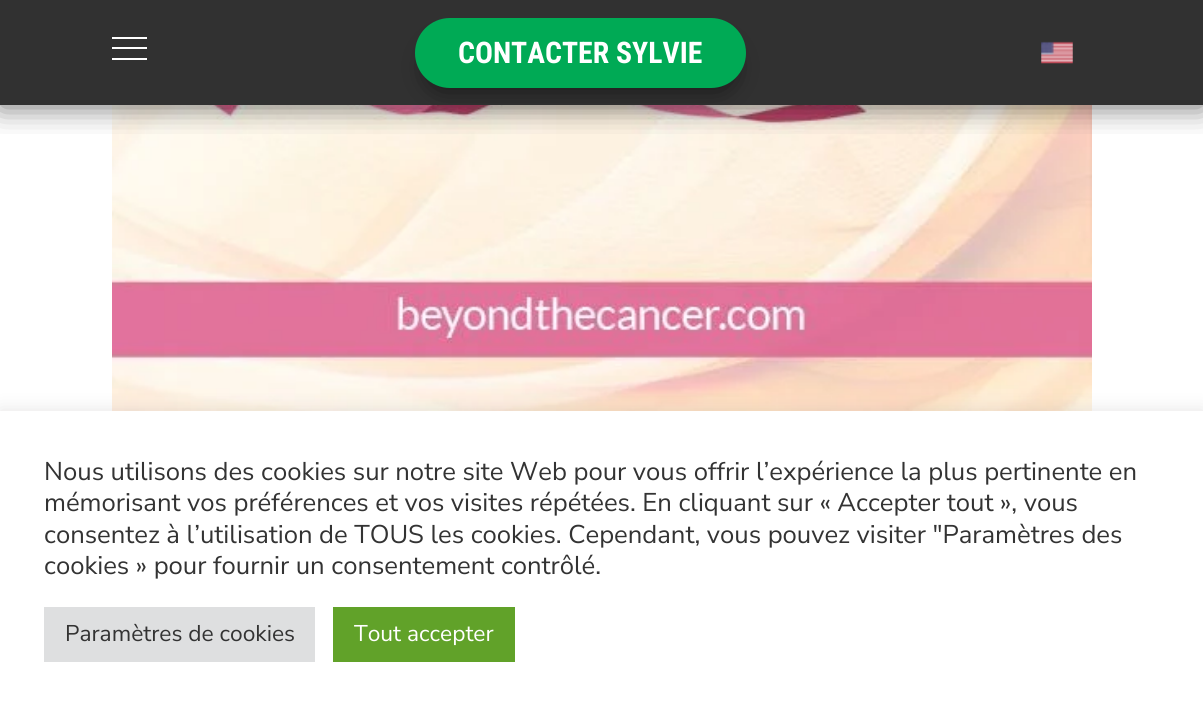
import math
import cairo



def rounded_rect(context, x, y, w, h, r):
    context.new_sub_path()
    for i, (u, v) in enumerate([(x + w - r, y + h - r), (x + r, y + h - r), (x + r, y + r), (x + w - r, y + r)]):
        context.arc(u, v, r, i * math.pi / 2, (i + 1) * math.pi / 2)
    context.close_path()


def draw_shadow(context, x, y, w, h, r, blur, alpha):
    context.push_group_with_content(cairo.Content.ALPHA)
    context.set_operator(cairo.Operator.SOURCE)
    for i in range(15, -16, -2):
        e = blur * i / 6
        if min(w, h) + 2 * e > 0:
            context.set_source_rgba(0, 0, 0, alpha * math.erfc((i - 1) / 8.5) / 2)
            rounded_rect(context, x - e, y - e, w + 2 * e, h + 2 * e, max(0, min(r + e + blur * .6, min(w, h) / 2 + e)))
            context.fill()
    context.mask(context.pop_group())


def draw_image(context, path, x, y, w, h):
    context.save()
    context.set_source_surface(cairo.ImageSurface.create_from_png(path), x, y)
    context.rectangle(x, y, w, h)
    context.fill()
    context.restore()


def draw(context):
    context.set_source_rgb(1, 1, 1)
    context.paint()
    context.set_source_rgb(49 / 255, 49 / 255, 49 / 255)
    context.rectangle(0, 0, 1203, 105)
    context.fill()
    draw_image(context, "images/2.png", 112, 105, 980, 306)
    context.save()
    context.rectangle(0, 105, 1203, 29)
    context.clip()
    context.set_source_rgb(0, 0, 0)
    draw_shadow(context, 0, 2, 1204, 105, 0, 15, 0.56)
    context.restore()
    context.set_source_rgb(1, 1, 1)
    context.rectangle(112, 37, 35, 2)
    context.fill()
    context.rectangle(112, 47, 35, 2)
    context.fill()
    context.rectangle(112, 58, 35, 2)
    context.fill()
    context.set_source_rgb(0, 0, 0)
    draw_shadow(context, 429, 46, 303, 42, 21, 13, 0.59)
    context.set_source_rgb(0, 170 / 255, 85 / 255)
    rounded_rect(context, 415, 18, 331, 70, 35)
    context.fill()
    draw_image(context, "images/1.png", 1041, 41, 32, 23)
    context.set_source_rgb(172 / 255, 171 / 255, 171 / 255)
    draw_shadow(context, 0, 410, 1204, 302, 0, 9, 0.3)
    context.set_source_rgb(1, 1, 1)
    context.rectangle(0, 411, 1203, 302)
    context.fill()
    context.set_source_rgb(222 / 255, 223 / 255, 224 / 255)
    context.rectangle(44, 607, 271, 55)
    context.fill()
    context.set_source_rgb(97 / 255, 162 / 255, 41 / 255)
    context.rectangle(333, 607, 182, 55)
    context.fill()
    context.select_font_face("Roboto Condensed", cairo.FontSlant.NORMAL, cairo.FontWeight.BOLD)
    context.set_font_size(29.75)
    context.set_source_rgb(1, 1, 1)
    context.move_to(458, 63)
    context.show_text("CONTACTER SYLVIE")
    context.select_font_face("Nunito Sans")
    context.set_font_size(25.65)
    context.set_source_rgb(51 / 255, 51 / 255, 51 / 255)
    context.move_to(44, 480)
    context.show_text("Nous utilisons des cookies sur notre site Web pour vous offrir l’expérience la plus pertinente en")
    context.move_to(44, 511)
    context.show_text("mémorisant vos préférences et vos visites répétées. En cliquant sur « Accepter tout », vous")
    context.move_to(44, 543)
    context.show_text("consentez à l’utilisation de TOUS les cookies. Cependant, vous pouvez visiter \"Paramètres des")
    context.move_to(44, 574)
    context.show_text("cookies » pour fournir un consentement contrôlé.")
    context.set_font_size(22.75)
    context.move_to(65, 641)
    context.show_text("Paramètres de cookies")
    context.set_source_rgb(1, 1, 1)
    context.move_to(354, 641)
    context.show_text("Tout accepter")


surface = cairo.ImageSurface(cairo.Format.RGB24, 1203, 713)
context = cairo.Context(surface)
options = cairo.FontOptions()
options.set_hint_metrics(cairo.HintMetrics.OFF)
options.set_hint_style(cairo.HintStyle.NONE)
context.set_font_options(options)
context.set_miter_limit(4)
draw(context)
surface.write_to_png("out.png")
